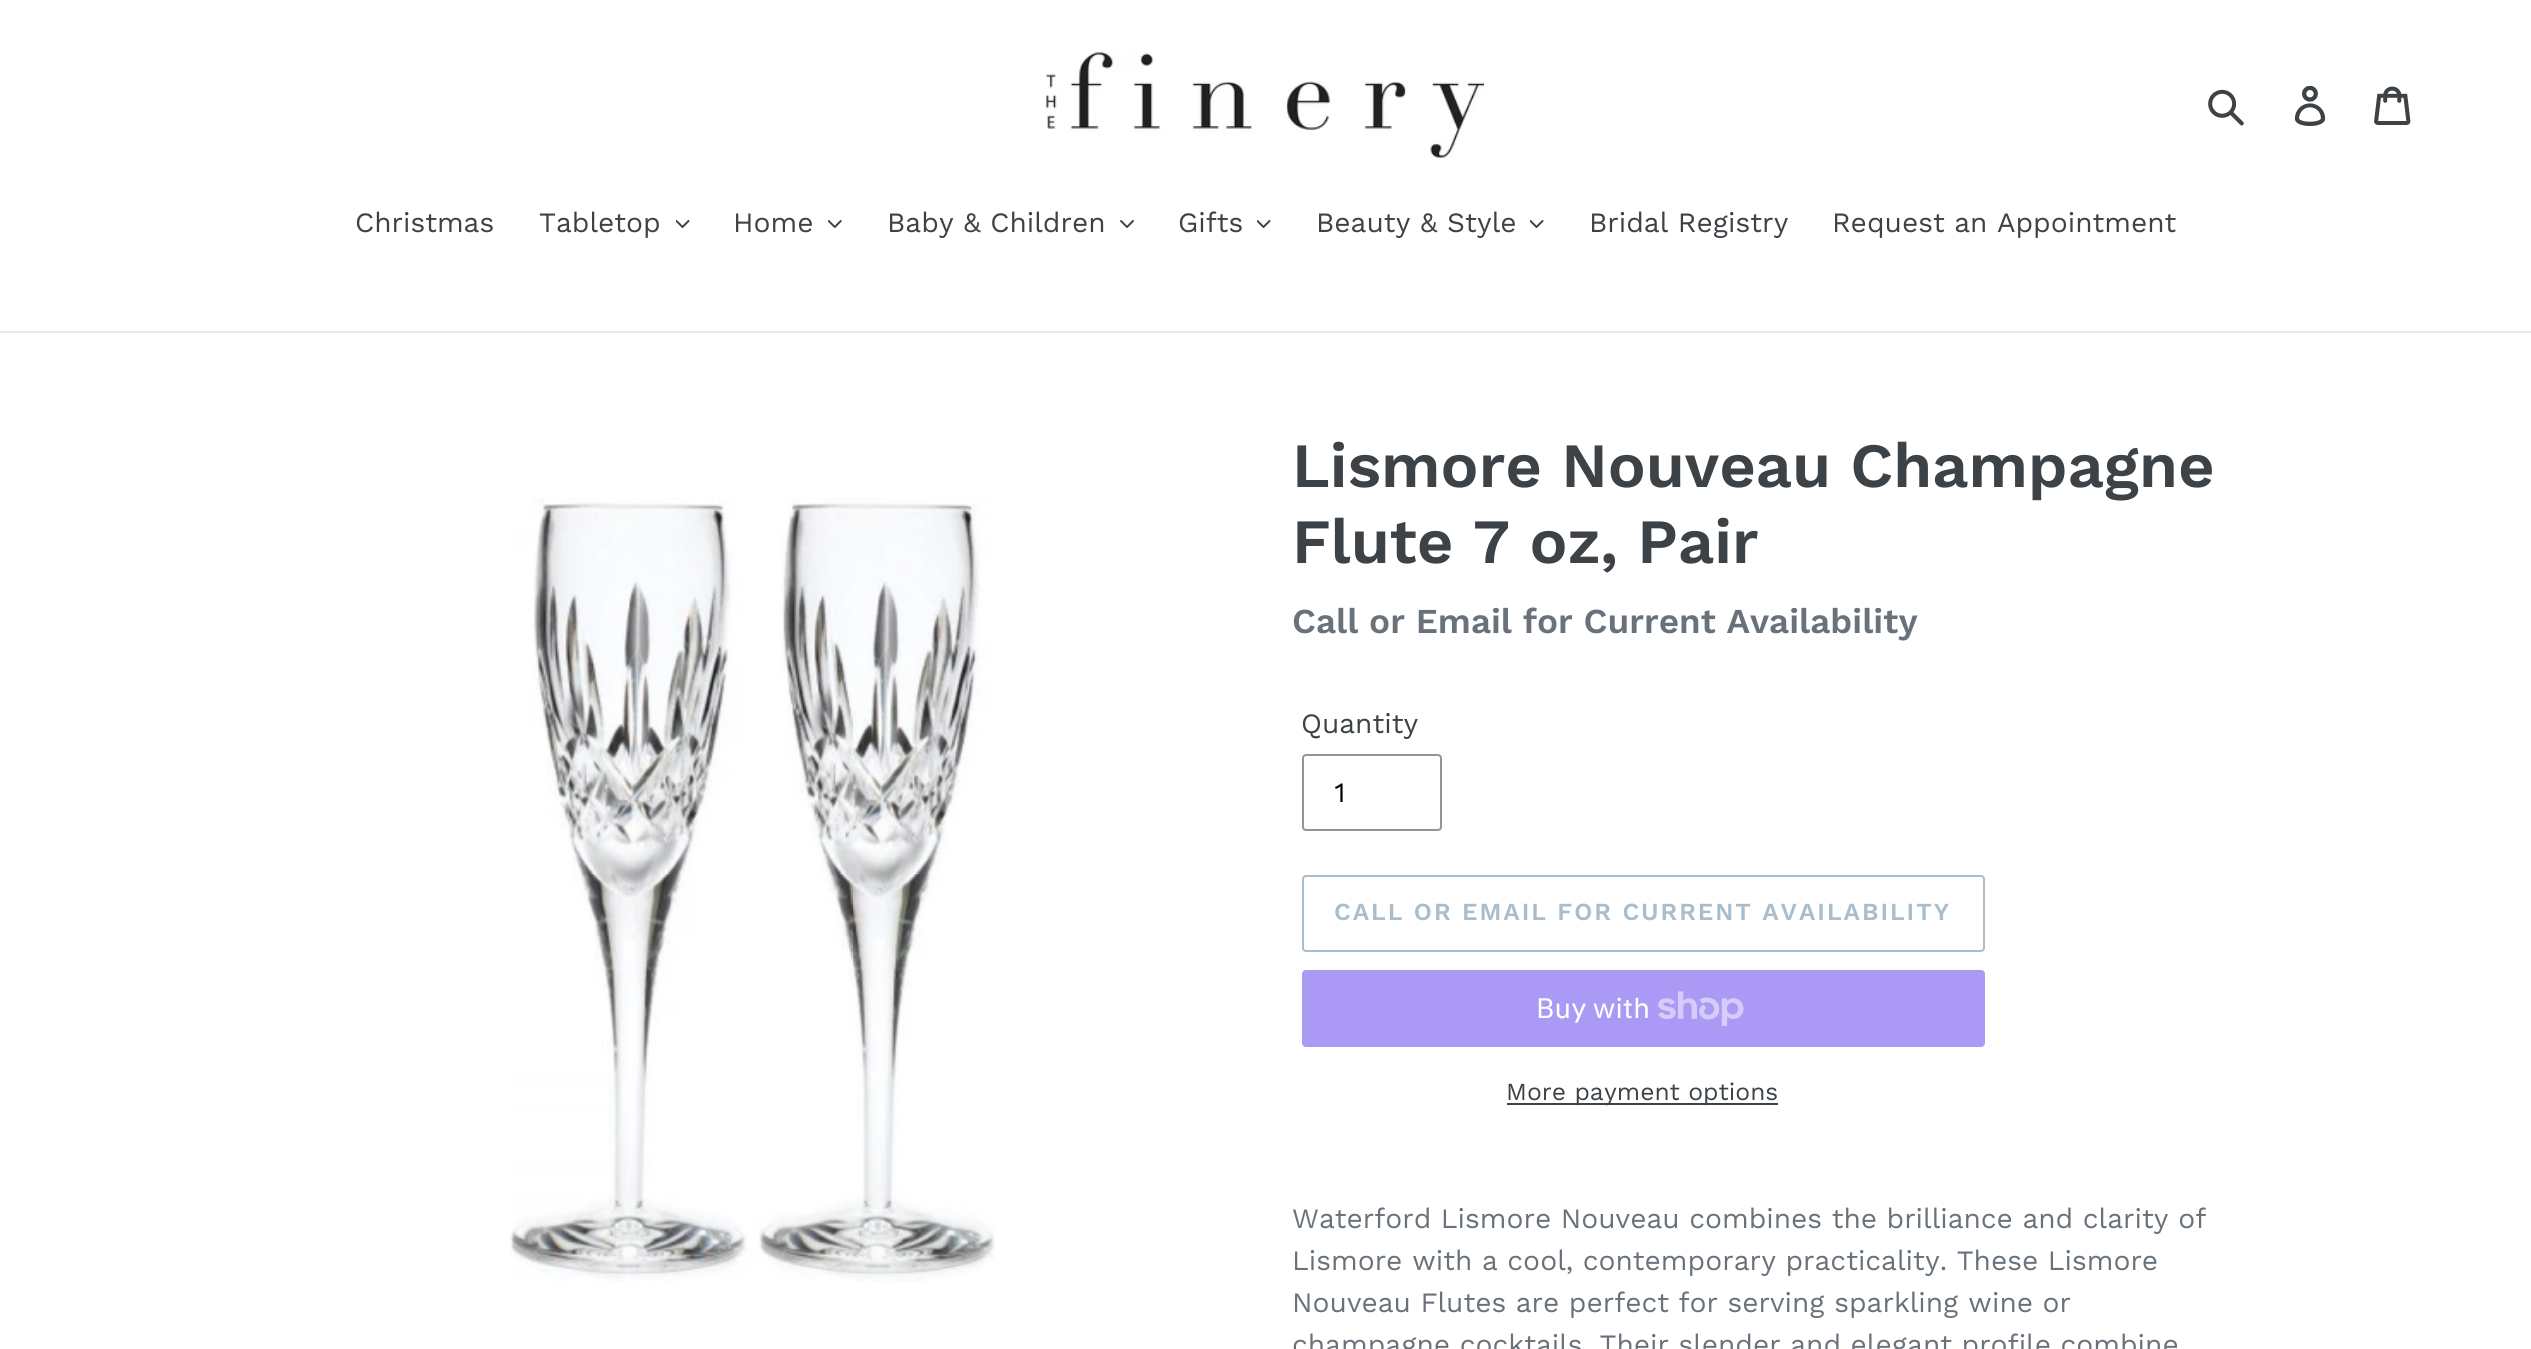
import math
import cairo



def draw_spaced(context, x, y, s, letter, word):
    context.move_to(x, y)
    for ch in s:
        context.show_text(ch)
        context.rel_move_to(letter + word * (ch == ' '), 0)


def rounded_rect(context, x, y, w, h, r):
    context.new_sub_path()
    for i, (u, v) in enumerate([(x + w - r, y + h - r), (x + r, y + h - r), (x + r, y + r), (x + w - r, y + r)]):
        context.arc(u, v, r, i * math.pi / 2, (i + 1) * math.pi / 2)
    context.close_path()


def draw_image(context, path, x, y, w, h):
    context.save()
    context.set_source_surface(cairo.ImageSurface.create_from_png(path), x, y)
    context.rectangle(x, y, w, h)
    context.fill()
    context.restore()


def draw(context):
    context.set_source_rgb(1, 1, 1)
    context.paint()
    draw_image(context, "images/1.png", 1046, 52, 438, 106)
    draw_image(context, "images/2.png", 2208, 89, 36, 37)
    draw_image(context, "images/3.png", 2294, 86, 32, 40)
    draw_image(context, "images/4.png", 2374, 86, 37, 39)
    context.set_source_rgb(232 / 255, 233 / 255, 235 / 255)
    context.rectangle(0, 331, 2531, 2)
    context.fill()
    draw_image(context, "images/5.png", 676, 220, 14, 8)
    draw_image(context, "images/6.png", 828, 220, 14, 8)
    draw_image(context, "images/7.png", 1120, 220, 14, 8)
    draw_image(context, "images/5.png", 1257, 220, 14, 8)
    draw_image(context, "images/5.png", 1530, 220, 14, 8)
    draw_image(context, "images/8.png", 510, 498, 485, 784)
    rounded_rect(context, 1303, 755, 138, 75, 3)
    context.set_source_rgb(148 / 255, 148 / 255, 148 / 255)
    context.stroke()
    rounded_rect(context, 1303, 876, 681, 75, 3)
    context.set_source_rgb(170 / 255, 189 / 255, 203 / 255)
    context.stroke()
    context.set_source_rgb(170 / 255, 153 / 255, 245 / 255)
    rounded_rect(context, 1302, 970, 683, 77, 4)
    context.fill()
    draw_image(context, "images/9.png", 1658, 991, 86, 35)
    context.set_source_rgb(61 / 255, 66 / 255, 70 / 255)
    context.rectangle(1507, 1103, 271, 2)
    context.fill()
    context.select_font_face("Work Sans")
    context.set_font_size(28)
    context.move_to(355, 232)
    context.show_text("Christmas")
    context.move_to(539, 232)
    context.show_text("Tabletop")
    context.move_to(733, 232)
    context.show_text("Home")
    context.move_to(887, 232)
    context.show_text("Baby & Children")
    context.move_to(1178, 232)
    context.show_text("Gifts")
    context.move_to(1316, 232)
    context.show_text("Beauty & Style")
    context.move_to(1589, 232)
    context.show_text("Bridal Registry")
    context.move_to(1832, 232)
    context.show_text("Request an Appointment")
    context.select_font_face("Work Sans SemiBold")
    context.set_font_size(63)
    context.move_to(1292, 487)
    context.show_text("Lismore Nouveau Champagne")
    context.move_to(1292, 563)
    context.show_text("Flute 7 oz, Pair")
    context.set_font_size(35)
    context.set_source_rgb(105 / 255, 114 / 255, 123 / 255)
    context.move_to(1292, 633)
    context.show_text("Call or Email for Current Availability")
    context.select_font_face("Work Sans")
    context.set_font_size(28)
    context.set_source_rgb(61 / 255, 66 / 255, 70 / 255)
    context.move_to(1301, 733)
    context.show_text("Quantity")
    context.set_source_rgb(0, 0, 0)
    context.move_to(1334, 802)
    context.show_text("1")
    context.select_font_face("Work Sans SemiBold")
    context.set_font_size(24.5)
    context.set_source_rgb(170 / 255, 189 / 255, 203 / 255)
    draw_spaced(context, 1334, 920, "CALL OR EMAIL FOR CURRENT AVAILABILITY", 1.95, 0)
    context.select_font_face("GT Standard")
    context.set_font_size(28)
    context.set_source_rgb(1, 1, 1)
    context.move_to(1536, 1018)
    context.show_text("Buy with")
    context.select_font_face("Work Sans")
    context.set_font_size(24.5)
    context.set_source_rgb(61 / 255, 66 / 255, 70 / 255)
    context.move_to(1506, 1100)
    context.show_text("More payment options")
    context.set_font_size(28)
    context.set_source_rgb(105 / 255, 114 / 255, 123 / 255)
    context.move_to(1292, 1228)
    context.show_text("Waterford Lismore Nouveau combines the brilliance and clarity of")
    context.move_to(1292, 1270)
    context.show_text("Lismore with a cool, contemporary practicality. These Lismore")
    context.move_to(1292, 1312)
    context.show_text("Nouveau Flutes are perfect for serving sparkling wine or")
    context.move_to(1292, 1354)
    context.show_text("champagne cocktails. Their slender and elegant profile combine")


surface = cairo.ImageSurface(cairo.Format.RGB24, 2531, 1349)
context = cairo.Context(surface)
options = cairo.FontOptions()
options.set_hint_metrics(cairo.HintMetrics.OFF)
options.set_hint_style(cairo.HintStyle.NONE)
context.set_font_options(options)
context.set_miter_limit(4)
draw(context)
surface.write_to_png("out.png")
